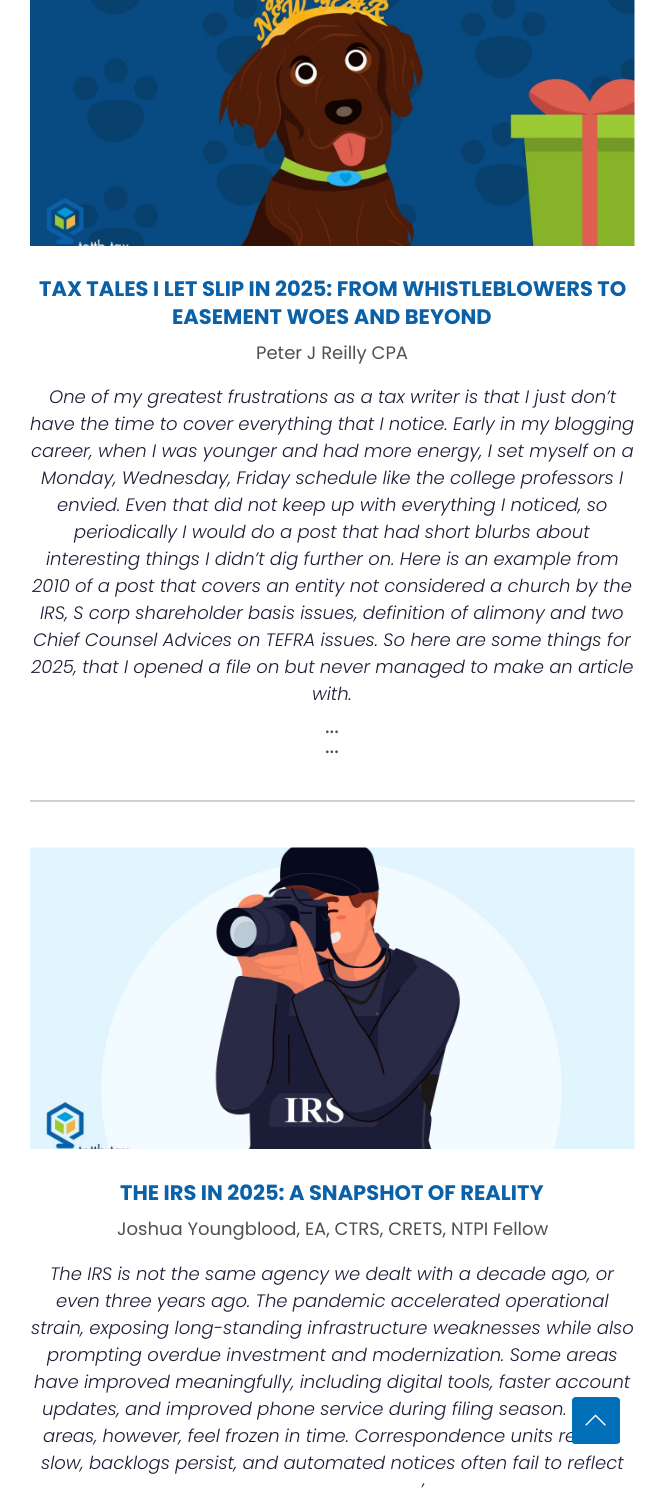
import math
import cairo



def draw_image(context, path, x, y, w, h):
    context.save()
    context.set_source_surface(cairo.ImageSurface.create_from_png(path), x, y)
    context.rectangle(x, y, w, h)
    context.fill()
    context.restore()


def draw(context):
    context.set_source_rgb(1, 1, 1)
    context.paint()
    context.set_source_rgb(205 / 255, 210 / 255, 216 / 255)
    context.rectangle(30, 800, 605, 2)
    context.fill()
    draw_image(context, "images/1.png", 30, 0, 605, 246)
    draw_image(context, "images/2.png", 30, 847, 605, 302)
    context.select_font_face("Poppins", cairo.FontSlant.NORMAL, cairo.FontWeight.BOLD)
    context.set_font_size(21)
    context.set_source_rgb(10 / 255, 97 / 255, 167 / 255)
    context.move_to(39, 296)
    context.show_text("TAX TALES I LET SLIP IN 2025: FROM WHISTLEBLOWERS TO")
    context.move_to(172, 324)
    context.show_text("EASEMENT WOES AND BEYOND")
    context.select_font_face("Poppins")
    context.set_font_size(18)
    context.set_source_rgb(82 / 255, 79 / 255, 79 / 255)
    context.move_to(256, 359)
    context.show_text("Peter J Reilly CPA")
    context.select_font_face("Poppins Light", cairo.FontSlant.ITALIC)
    context.set_source_rgb(27 / 255, 29 / 255, 54 / 255)
    context.move_to(49, 403)
    context.show_text("One of my greatest frustrations as a tax writer is that I just don’t")
    context.move_to(30, 430)
    context.show_text("have the time to cover everything that I notice. Early in my blogging")
    context.move_to(31, 457)
    context.show_text("career, when I was younger and had more energy, I set myself on a")
    context.move_to(41, 484)
    context.show_text("Monday, Wednesday, Friday schedule like the college professors I")
    context.move_to(57, 511)
    context.show_text("envied. Even that did not keep up with everything I noticed, so")
    context.move_to(74, 538)
    context.show_text("periodically I would do a post that had short blurbs about")
    context.move_to(46, 565)
    context.show_text("interesting things I didn’t dig further on. Here is an example from")
    context.move_to(32, 592)
    context.show_text("2010 of a post that covers an entity not considered a church by the")
    context.move_to(40, 619)
    context.show_text("IRS, S corp shareholder basis issues, definition of alimony and two")
    context.move_to(33, 646)
    context.show_text("Chief Counsel Advices on TEFRA issues. So here are some things for")
    context.move_to(31, 673)
    context.show_text("2025, that I opened a file on but never managed to make an article")
    context.move_to(312, 700)
    context.show_text("with.")
    context.select_font_face("Poppins")
    context.set_font_size(22)
    context.set_source_rgb(75 / 255, 79 / 255, 88 / 255)
    context.move_to(325, 733)
    context.show_text("...")
    context.move_to(325, 753)
    context.show_text("...")
    context.select_font_face("Poppins", cairo.FontSlant.NORMAL, cairo.FontWeight.BOLD)
    context.set_font_size(21)
    context.set_source_rgb(10 / 255, 97 / 255, 167 / 255)
    context.move_to(120, 1200)
    context.show_text("THE IRS IN 2025: A SNAPSHOT OF REALITY")
    context.select_font_face("Poppins")
    context.set_font_size(18)
    context.set_source_rgb(82 / 255, 79 / 255, 79 / 255)
    context.move_to(117, 1235)
    context.show_text("Joshua Youngblood, EA, CTRS, CRETS, NTPI Fellow")
    context.select_font_face("Poppins Light", cairo.FontSlant.ITALIC)
    context.set_source_rgb(27 / 255, 29 / 255, 54 / 255)
    context.move_to(50, 1280)
    context.show_text("The IRS is not the same agency we dealt with a decade ago, or")
    context.move_to(56, 1307)
    context.show_text("even three years ago. The pandemic accelerated operational")
    context.move_to(31, 1334)
    context.show_text("strain, exposing long-standing infrastructure weaknesses while also")
    context.move_to(47, 1361)
    context.show_text("prompting overdue investment and modernization. Some areas")
    context.move_to(34, 1388)
    context.show_text("have improved meaningfully, including digital tools, faster account")
    context.move_to(42, 1415)
    context.show_text("updates, and improved phone service during filing season.")
    context.move_to(43, 1442)
    context.show_text("areas, however, feel frozen in time. Correspondence units re")
    context.move_to(41, 1469)
    context.show_text("slow, backlogs persist, and automated notices often fail to reflect")
    context.move_to(420, 1496)
    context.show_text("’")
    context.set_source_rgb(1 / 255, 112 / 255, 185 / 255)
    context.new_path()
    context.move_to(616, 1444)
    context.line_to(575, 1444)
    context.curve_to(574, 1444, 572, 1443, 572, 1442)
    context.line_to(572, 1400)
    context.curve_to(572, 1399, 574, 1397, 575, 1397)
    context.line_to(616, 1397)
    context.curve_to(618, 1397, 620, 1399, 620, 1400)
    context.line_to(620, 1442)
    context.curve_to(620, 1443, 618, 1444, 616, 1444)
    context.close_path()
    context.fill()
    draw_image(context, "images/3.png", 585, 1414, 21, 12)


surface = cairo.ImageSurface(cairo.Format.RGB24, 664, 1489)
context = cairo.Context(surface)
options = cairo.FontOptions()
options.set_hint_metrics(cairo.HintMetrics.OFF)
options.set_hint_style(cairo.HintStyle.NONE)
context.set_font_options(options)
context.set_miter_limit(4)
draw(context)
surface.write_to_png("out.png")
